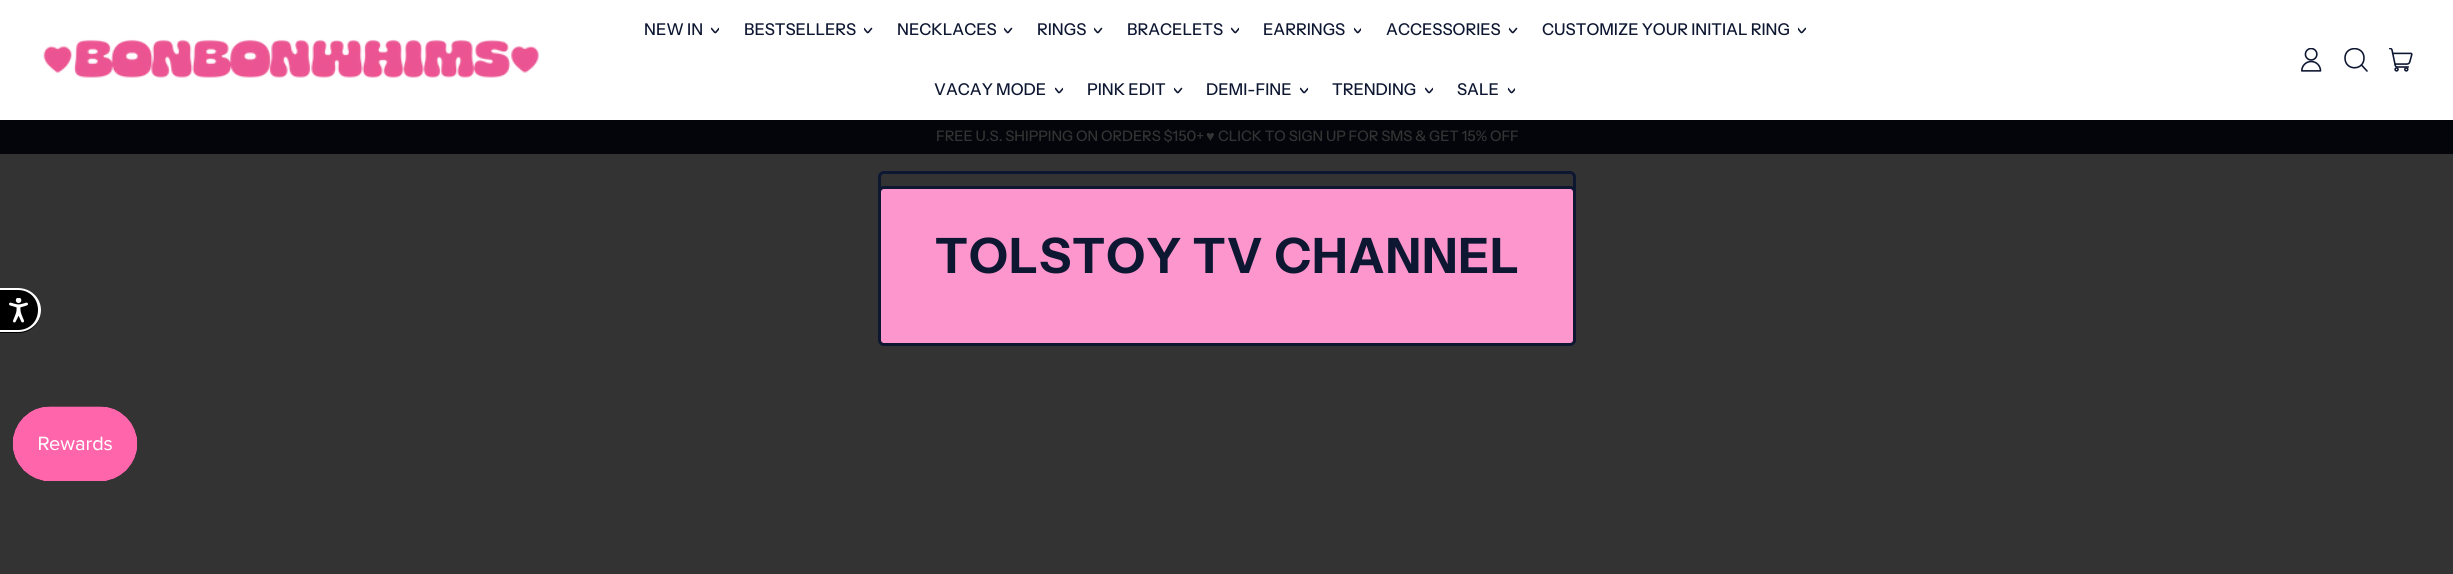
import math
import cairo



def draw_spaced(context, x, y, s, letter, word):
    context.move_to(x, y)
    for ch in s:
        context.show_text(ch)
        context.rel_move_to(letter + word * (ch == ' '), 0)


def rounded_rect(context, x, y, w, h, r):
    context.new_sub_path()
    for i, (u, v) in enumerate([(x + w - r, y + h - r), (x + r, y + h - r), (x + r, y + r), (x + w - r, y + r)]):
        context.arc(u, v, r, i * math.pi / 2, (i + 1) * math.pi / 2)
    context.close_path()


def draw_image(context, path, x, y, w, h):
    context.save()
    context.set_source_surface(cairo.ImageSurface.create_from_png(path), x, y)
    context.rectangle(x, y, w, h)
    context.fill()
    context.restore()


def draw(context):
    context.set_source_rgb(1, 1, 1)
    context.paint()
    context.set_source_rgb(51 / 255, 51 / 255, 51 / 255)
    context.rectangle(0, 154, 2453, 420)
    context.fill()
    draw_image(context, "images/1.png", 43, 39, 496, 39)
    context.save()
    context.rectangle(711, 26, 8, 8)
    context.clip()
    context.new_path()
    context.move_to(711.5, 28.5)
    context.curve_to(716.5, 34, 714, 34, 719, 28.5)
    context.set_source_rgb(14 / 255, 23 / 255, 50 / 255)
    context.set_line_width(1.6)
    context.set_line_cap(cairo.LineCap.ROUND)
    context.set_line_join(cairo.LineJoin.ROUND)
    context.stroke()
    context.restore()
    context.save()
    context.rectangle(864, 26, 9, 8)
    context.clip()
    context.new_path()
    context.move_to(864, 28.5)
    context.curve_to(869, 34, 866.5, 34, 871.5, 28.5)
    context.set_source_rgb(14 / 255, 23 / 255, 50 / 255)
    context.set_line_width(1.6)
    context.set_line_cap(cairo.LineCap.ROUND)
    context.set_line_join(cairo.LineJoin.ROUND)
    context.stroke()
    context.restore()
    context.save()
    context.rectangle(1004, 26, 9, 8)
    context.clip()
    context.new_path()
    context.move_to(1004, 28.5)
    context.curve_to(1009, 34, 1006.5, 34, 1011.5, 28.5)
    context.set_source_rgb(14 / 255, 23 / 255, 50 / 255)
    context.set_line_width(1.6)
    context.set_line_cap(cairo.LineCap.ROUND)
    context.set_line_join(cairo.LineJoin.ROUND)
    context.stroke()
    context.restore()
    context.save()
    context.rectangle(1094, 26, 9, 8)
    context.clip()
    context.new_path()
    context.move_to(1094, 28.5)
    context.curve_to(1099, 34, 1096.5, 34, 1101.5, 28.5)
    context.set_source_rgb(14 / 255, 23 / 255, 50 / 255)
    context.set_line_width(1.6)
    context.set_line_cap(cairo.LineCap.ROUND)
    context.set_line_join(cairo.LineJoin.ROUND)
    context.stroke()
    context.restore()
    context.save()
    context.rectangle(1231, 26, 8, 8)
    context.clip()
    context.new_path()
    context.move_to(1231.5, 28.5)
    context.curve_to(1236.5, 34, 1234, 34, 1239, 28.5)
    context.set_source_rgb(14 / 255, 23 / 255, 50 / 255)
    context.set_line_width(1.6)
    context.set_line_cap(cairo.LineCap.ROUND)
    context.set_line_join(cairo.LineJoin.ROUND)
    context.stroke()
    context.restore()
    context.save()
    context.rectangle(1354, 26, 7, 8)
    context.clip()
    context.new_path()
    context.move_to(1354, 28.5)
    context.curve_to(1359, 34, 1356.5, 34, 1361.5, 28.5)
    context.set_source_rgb(14 / 255, 23 / 255, 50 / 255)
    context.set_line_width(1.6)
    context.set_line_cap(cairo.LineCap.ROUND)
    context.set_line_join(cairo.LineJoin.ROUND)
    context.stroke()
    context.restore()
    context.save()
    context.rectangle(1509, 26, 9, 8)
    context.clip()
    context.new_path()
    context.move_to(1509, 28.5)
    context.curve_to(1514, 34, 1511.5, 34, 1516.5, 28.5)
    context.set_source_rgb(14 / 255, 23 / 255, 50 / 255)
    context.set_line_width(1.6)
    context.set_line_cap(cairo.LineCap.ROUND)
    context.set_line_join(cairo.LineJoin.ROUND)
    context.stroke()
    context.restore()
    context.save()
    context.rectangle(1798, 26, 8, 8)
    context.clip()
    context.new_path()
    context.move_to(1798, 28.5)
    context.curve_to(1802.5, 34, 1800.5, 34, 1805.5, 28.5)
    context.set_source_rgb(14 / 255, 23 / 255, 50 / 255)
    context.set_line_width(1.6)
    context.set_line_cap(cairo.LineCap.ROUND)
    context.set_line_join(cairo.LineJoin.ROUND)
    context.stroke()
    context.restore()
    context.save()
    context.rectangle(1055, 86, 8, 8)
    context.clip()
    context.new_path()
    context.move_to(1055.5, 88.5)
    context.curve_to(1060, 94, 1058, 94, 1063, 88.5)
    context.set_source_rgb(14 / 255, 23 / 255, 50 / 255)
    context.set_line_width(1.6)
    context.set_line_cap(cairo.LineCap.ROUND)
    context.set_line_join(cairo.LineJoin.ROUND)
    context.stroke()
    context.restore()
    context.save()
    context.rectangle(1174, 86, 9, 8)
    context.clip()
    context.new_path()
    context.move_to(1174, 88.5)
    context.curve_to(1179, 94, 1176.5, 94, 1181.5, 88.5)
    context.set_source_rgb(14 / 255, 23 / 255, 50 / 255)
    context.set_line_width(1.6)
    context.set_line_cap(cairo.LineCap.ROUND)
    context.set_line_join(cairo.LineJoin.ROUND)
    context.stroke()
    context.restore()
    context.save()
    context.rectangle(1300, 86, 8, 8)
    context.clip()
    context.new_path()
    context.move_to(1300.5, 88.5)
    context.curve_to(1305, 94, 1303, 94, 1308, 88.5)
    context.set_source_rgb(14 / 255, 23 / 255, 50 / 255)
    context.set_line_width(1.6)
    context.set_line_cap(cairo.LineCap.ROUND)
    context.set_line_join(cairo.LineJoin.ROUND)
    context.stroke()
    context.restore()
    context.save()
    context.rectangle(1425, 86, 8, 8)
    context.clip()
    context.new_path()
    context.move_to(1425.5, 88.5)
    context.curve_to(1430, 94, 1428, 94, 1433, 88.5)
    context.set_source_rgb(14 / 255, 23 / 255, 50 / 255)
    context.set_line_width(1.6)
    context.set_line_cap(cairo.LineCap.ROUND)
    context.set_line_join(cairo.LineJoin.ROUND)
    context.stroke()
    context.restore()
    context.save()
    context.rectangle(1508, 86, 7, 8)
    context.clip()
    context.new_path()
    context.move_to(1508, 88.5)
    context.curve_to(1512.5, 94, 1510.5, 94, 1515.5, 88.5)
    context.set_source_rgb(14 / 255, 23 / 255, 50 / 255)
    context.set_line_width(1.6)
    context.set_line_cap(cairo.LineCap.ROUND)
    context.set_line_join(cairo.LineJoin.ROUND)
    context.stroke()
    context.restore()
    draw_image(context, "images/2.png", 2301, 48, 21, 24)
    context.save()
    context.rectangle(2344, 48, 25, 25)
    context.clip()
    context.new_path()
    context.move_to(2345, 58)
    context.curve_to(2345, 71, 2364, 71, 2364, 58)
    context.curve_to(2364, 45.5, 2345, 45.5, 2345, 58)
    context.close_path()
    context.set_source_rgb(14 / 255, 23 / 255, 50 / 255)
    context.set_line_width(1.6)
    context.set_line_cap(cairo.LineCap.ROUND)
    context.set_line_join(cairo.LineJoin.ROUND)
    context.stroke()
    context.restore()
    context.new_path()
    context.move_to(2367, 71)
    context.line_to(2361.5, 65)
    context.set_source_rgb(14 / 255, 23 / 255, 50 / 255)
    context.set_line_width(1.6)
    context.set_line_cap(cairo.LineCap.ROUND)
    context.set_line_join(cairo.LineJoin.ROUND)
    context.stroke()
    draw_image(context, "images/3.png", 2389, 48, 24, 24)
    context.set_source_rgb(3 / 255, 5 / 255, 10 / 255)
    context.rectangle(0, 120, 2453, 34)
    context.fill()
    rounded_rect(context, 879.5, 172.5, 695, 157, 4.5)
    context.set_source_rgb(14 / 255, 23 / 255, 50 / 255)
    context.set_line_width(3)
    context.set_line_cap(cairo.LineCap.BUTT)
    context.set_line_join(cairo.LineJoin.MITER)
    context.stroke()
    context.set_source_rgb(252 / 255, 150 / 255, 204 / 255)
    rounded_rect(context, 879.5, 187.5, 695, 157, 4.5)
    context.fill_preserve()
    context.set_source_rgb(14 / 255, 23 / 255, 50 / 255)
    context.stroke()
    context.set_source_rgb(0, 0, 0)
    context.new_path()
    context.move_to(0, 288)
    context.line_to(18.5, 288)
    context.curve_to(31, 288, 41, 298, 41, 310.5)
    context.curve_to(41, 323, 31, 333, 18.5, 333)
    context.line_to(0, 333)
    context.close_path()
    context.fill()
    context.set_source_rgb(1, 1, 1)
    context.set_fill_rule(cairo.FillRule.EVEN_ODD)
    context.new_path()
    context.move_to(0, 288)
    context.line_to(18, 288)
    context.curve_to(31, 288, 41, 298, 41, 310)
    context.curve_to(41, 322, 31, 332, 18, 332)
    context.line_to(0, 332)
    context.close_path()
    context.move_to(0, 290)
    context.line_to(18, 290)
    context.curve_to(30, 290, 38, 299, 38, 310)
    context.curve_to(38, 321, 30, 330, 18, 330)
    context.line_to(0, 330)
    context.close_path()
    context.fill()
    draw_image(context, "images/4.png", 9, 298, 19, 25)
    draw_image(context, "images/5.png", 12, 406, 126, 75)
    context.select_font_face("Instrument Sans Medium")
    context.set_font_size(16.25)
    context.set_source_rgb(14 / 255, 23 / 255, 50 / 255)
    context.move_to(644, 35)
    context.show_text("NEW IN")
    context.move_to(744, 35)
    context.show_text("BESTSELLERS")
    context.move_to(897, 35)
    context.show_text("NECKLACES")
    context.move_to(1037, 35)
    context.show_text("RINGS")
    context.move_to(1127, 35)
    context.show_text("BRACELETS")
    context.move_to(1263, 35)
    context.show_text("EARRINGS")
    context.move_to(1386, 35)
    context.show_text("ACCESSORIES")
    context.move_to(1542, 35)
    context.show_text("CUSTOMIZE YOUR INITIAL RING")
    context.move_to(934, 95)
    context.show_text("VACAY MODE")
    context.move_to(1087, 95)
    context.show_text("PINK EDIT")
    context.move_to(1206, 95)
    context.show_text("DEMI-FINE")
    context.move_to(1332, 95)
    context.show_text("TRENDING")
    context.move_to(1457, 95)
    context.show_text("SALE")
    context.set_font_size(14.5)
    context.set_source_rgb(51 / 255, 51 / 255, 51 / 255)
    context.move_to(936, 141)
    context.show_text("FREE U.S. SHIPPING ON ORDERS $150+")
    context.select_font_face("Liberation Sans")
    context.move_to(1206, 141)
    context.show_text("♥")
    context.select_font_face("Instrument Sans Medium")
    context.move_to(1218, 141)
    context.show_text("CLICK TO SIGN UP FOR SMS & GET 15% OFF")
    context.select_font_face("Instrument Sans", cairo.FontSlant.NORMAL, cairo.FontWeight.BOLD)
    context.set_font_size(48.75)
    context.set_source_rgb(14 / 255, 23 / 255, 50 / 255)
    draw_spaced(context, 935, 273, "TOLSTOY TV CHANNEL", 1.25, 0)


surface = cairo.ImageSurface(cairo.Format.RGB24, 2453, 574)
context = cairo.Context(surface)
options = cairo.FontOptions()
options.set_hint_metrics(cairo.HintMetrics.OFF)
options.set_hint_style(cairo.HintStyle.NONE)
context.set_font_options(options)
context.set_miter_limit(4)
draw(context)
surface.write_to_png("out.png")
